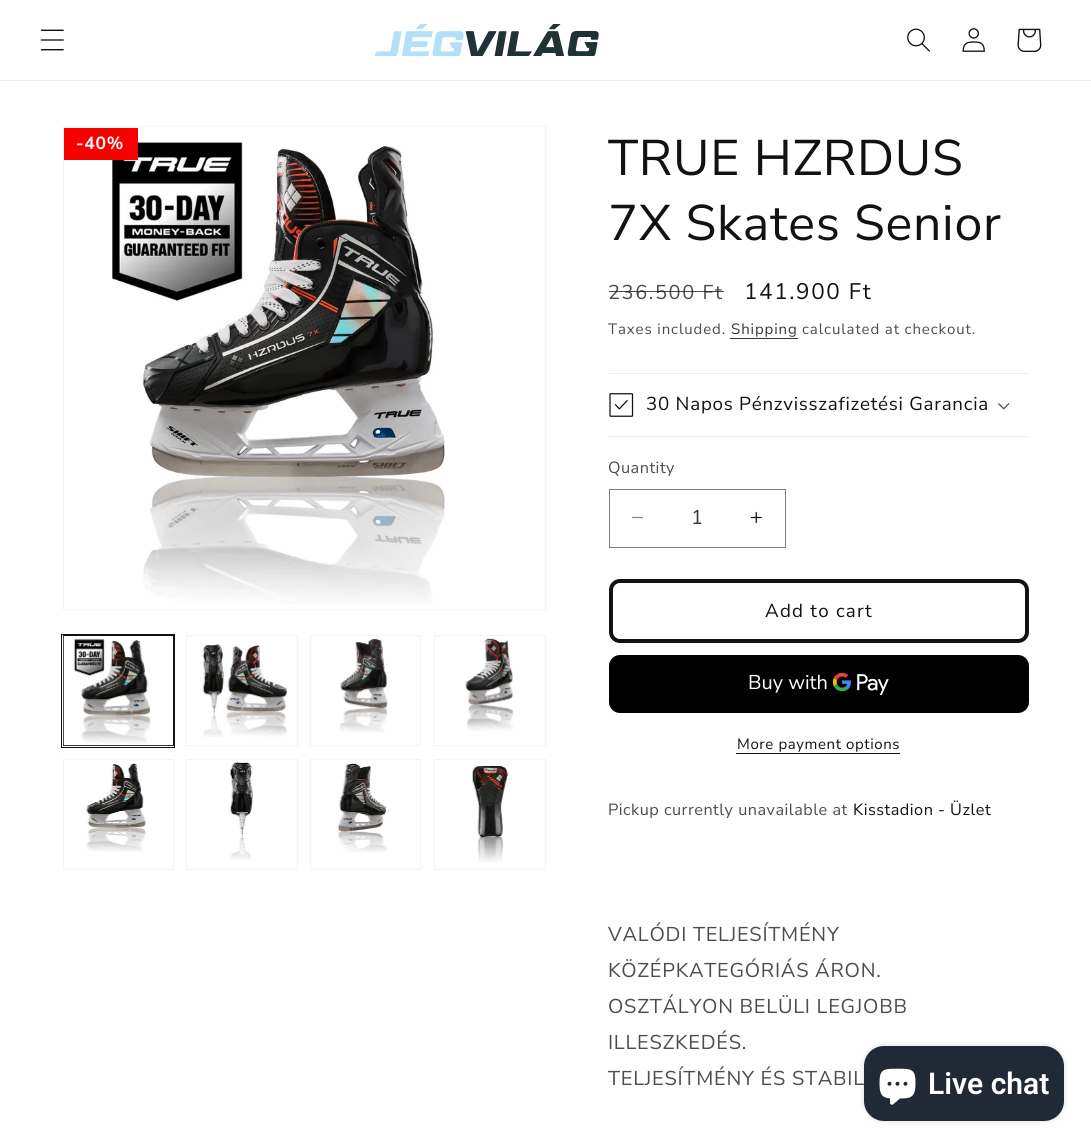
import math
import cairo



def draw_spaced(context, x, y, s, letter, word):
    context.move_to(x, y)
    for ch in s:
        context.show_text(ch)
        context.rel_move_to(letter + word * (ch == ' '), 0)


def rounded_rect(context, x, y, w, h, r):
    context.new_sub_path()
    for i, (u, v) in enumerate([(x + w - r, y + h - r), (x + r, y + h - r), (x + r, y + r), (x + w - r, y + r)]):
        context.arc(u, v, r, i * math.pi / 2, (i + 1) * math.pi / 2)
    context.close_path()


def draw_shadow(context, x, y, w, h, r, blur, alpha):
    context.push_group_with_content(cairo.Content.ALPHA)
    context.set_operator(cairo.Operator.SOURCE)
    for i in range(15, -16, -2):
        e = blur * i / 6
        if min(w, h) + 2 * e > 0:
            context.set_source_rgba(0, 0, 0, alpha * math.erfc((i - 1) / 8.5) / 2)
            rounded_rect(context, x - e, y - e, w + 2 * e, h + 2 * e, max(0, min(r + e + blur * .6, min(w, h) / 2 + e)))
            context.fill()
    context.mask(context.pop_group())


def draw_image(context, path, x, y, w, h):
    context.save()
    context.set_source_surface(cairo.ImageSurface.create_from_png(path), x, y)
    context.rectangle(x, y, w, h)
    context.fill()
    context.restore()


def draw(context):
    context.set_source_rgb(1, 1, 1)
    context.paint()
    context.set_source_rgb(236 / 255, 236 / 255, 236 / 255)
    context.rectangle(0, 80, 1091, 1)
    context.fill()
    draw_image(context, "images/1.png", 40, 29, 24, 22)
    draw_image(context, "images/2.png", 374, 24, 225, 32)
    draw_image(context, "images/3.png", 907, 28, 23, 24)
    draw_image(context, "images/4.png", 962, 28, 23, 24)
    draw_image(context, "images/5.png", 1017, 28, 25, 24)
    context.rectangle(63.5, 126.5, 482, 483)
    context.set_source_rgb(243 / 255, 243 / 255, 243 / 255)
    context.set_line_width(1)
    context.stroke()
    draw_image(context, "images/6.png", 112, 142, 334, 462)
    context.set_source_rgb(246 / 255, 0, 0)
    context.rectangle(64, 128, 74, 32)
    context.fill()
    context.rectangle(61.5, 634.5, 113, 113)
    context.set_source_rgb(18 / 255, 18 / 255, 18 / 255)
    context.stroke()
    context.rectangle(63.5, 635.5, 110, 110)
    context.stroke()
    draw_image(context, "images/7.png", 63, 636, 110, 110)
    context.rectangle(186.5, 635.5, 111, 110)
    context.set_source_rgb(243 / 255, 243 / 255, 243 / 255)
    context.stroke()
    draw_image(context, "images/8.png", 202, 644, 85, 93)
    context.rectangle(310.5, 635.5, 110, 110)
    context.stroke()
    draw_image(context, "images/9.png", 339, 638, 49, 95)
    context.rectangle(434.5, 635.5, 111, 110)
    context.stroke()
    draw_image(context, "images/10.png", 465, 638, 49, 93)
    context.rectangle(63.5, 759.5, 110, 110)
    context.stroke()
    draw_image(context, "images/11.png", 86, 763, 60, 89)
    context.rectangle(186.5, 759.5, 111, 110)
    context.stroke()
    draw_image(context, "images/12.png", 229, 762, 24, 98)
    context.rectangle(310.5, 759.5, 110, 110)
    context.stroke()
    draw_image(context, "images/13.png", 337, 763, 50, 90)
    context.rectangle(434.5, 759.5, 111, 110)
    context.stroke()
    draw_image(context, "images/14.png", 471, 765, 37, 98)
    context.set_source_rgb(54 / 255, 54 / 255, 54 / 255)
    context.rectangle(730, 338, 68, 1)
    context.fill()
    context.set_source_rgb(236 / 255, 236 / 255, 236 / 255)
    context.rectangle(609, 373, 420, 1)
    context.fill()
    context.rectangle(609, 436, 420, 1)
    context.fill()
    draw_image(context, "images/15.png", 609, 393, 25, 24)
    draw_image(context, "images/16.png", 998, 403, 12, 7)
    draw_image(context, "images/17.png", 632, 516, 11, 3)
    draw_image(context, "images/18.png", 750, 511, 12, 13)
    context.rectangle(609.5, 489.5, 176, 58)
    context.set_source_rgb(125 / 255, 125 / 255, 125 / 255)
    context.stroke()
    rounded_rect(context, 611, 581, 416, 60, 9)
    context.set_source_rgb(18 / 255, 18 / 255, 18 / 255)
    context.set_line_width(4)
    context.stroke()
    context.set_source_rgb(0, 0, 0)
    rounded_rect(context, 609, 655, 420, 58, 11)
    context.fill()
    draw_image(context, "images/19.png", 833, 673, 56, 22)
    context.set_source_rgb(18 / 255, 18 / 255, 18 / 255)
    context.rectangle(736, 753, 164, 1)
    context.fill()
    context.set_source_rgb(0, 0, 0)
    draw_shadow(context, 864, 1046, 200, 75, 20, 3, 0.15)
    context.set_source_rgb(32 / 255, 42 / 255, 54 / 255)
    rounded_rect(context, 864, 1046, 200, 75, 20)
    context.fill()
    draw_image(context, "images/20.png", 879, 1068, 37, 37)
    context.select_font_face("Nunito Sans", cairo.FontSlant.NORMAL, cairo.FontWeight.BOLD)
    context.set_font_size(17.5)
    context.set_source_rgb(1, 1, 1)
    draw_spaced(context, 76, 149, "-40%", 0.75, 0)
    context.select_font_face("Nunito Sans")
    context.set_font_size(50)
    context.set_source_rgb(18 / 255, 18 / 255, 18 / 255)
    draw_spaced(context, 608, 175, "TRUE HZRDUS", 0.75, 0)
    draw_spaced(context, 608, 240, "7X Skates Senior", 0.75, 0)
    context.set_font_size(20)
    context.set_source_rgb(77 / 255, 77 / 255, 77 / 255)
    draw_spaced(context, 608, 299, "236.500 Ft", 1.6, 0)
    context.set_source_rgba(18 / 255, 18 / 255, 18 / 255, 0.75)
    context.rectangle(609, 291, 115, 1)
    context.fill()
    context.set_font_size(22.5)
    context.set_source_rgb(18 / 255, 18 / 255, 18 / 255)
    draw_spaced(context, 744, 299, "141.900 Ft", 1.6, 0)
    context.set_font_size(15)
    context.set_source_rgb(77 / 255, 77 / 255, 77 / 255)
    draw_spaced(context, 608, 334, "Taxes included.", 0.9, 0)
    context.set_source_rgb(54 / 255, 54 / 255, 54 / 255)
    draw_spaced(context, 731, 334, "Shipping", 0.9, 0)
    context.set_source_rgb(77 / 255, 77 / 255, 77 / 255)
    draw_spaced(context, 802, 334, "calculated at checkout.", 0.9, 0)
    context.set_font_size(18.75)
    context.set_source_rgb(18 / 255, 18 / 255, 18 / 255)
    draw_spaced(context, 646, 410, "30 Napos Pénzvisszafizetési Garancia", 0.75, 0)
    context.set_font_size(16.25)
    context.set_source_rgb(77 / 255, 77 / 255, 77 / 255)
    draw_spaced(context, 608, 473, "Quantity", 0.5, 0)
    context.set_font_size(20)
    context.set_source_rgb(54 / 255, 54 / 255, 54 / 255)
    context.move_to(691, 524)
    context.show_text("1")
    context.set_font_size(18.75)
    context.set_source_rgb(18 / 255, 18 / 255, 18 / 255)
    draw_spaced(context, 765, 617, "Add to cart", 1.25, 0)
    context.set_font_size(20)
    context.set_source_rgb(1, 1, 1)
    context.move_to(748, 689)
    context.show_text("Buy with")
    context.set_font_size(15)
    context.set_source_rgb(18 / 255, 18 / 255, 18 / 255)
    draw_spaced(context, 737, 749, "More payment options", 0.6, 0)
    context.set_font_size(16.25)
    context.set_source_rgb(77 / 255, 77 / 255, 77 / 255)
    draw_spaced(context, 608, 815, "Pickup currently unavailable at", 0.5, 0)
    context.set_source_rgb(18 / 255, 18 / 255, 18 / 255)
    draw_spaced(context, 853, 815, "Kisstadion - Üzlet", 0.5, 0)
    context.set_font_size(20)
    context.set_source_rgb(77 / 255, 77 / 255, 77 / 255)
    draw_spaced(context, 608, 941, "VALÓDI TELJESÍTMÉNY", 0.75, 0)
    draw_spaced(context, 608, 977, "KÖZÉPKATEGÓRIÁS ÁRON.", 0.75, 0)
    draw_spaced(context, 608, 1013, "OSZTÁLYON BELÜLI LEGJOBB", 0.75, 0)
    draw_spaced(context, 608, 1049, "ILLESZKEDÉS.", 0.75, 0)
    draw_spaced(context, 608, 1085, "TELJESÍTMÉNY ÉS STABIL", 0.75, 0)
    context.select_font_face("Roboto SemiBold")
    context.set_font_size(30)
    context.set_source_rgb(1, 1, 1)
    context.move_to(928, 1094)
    context.show_text("Live chat")


surface = cairo.ImageSurface(cairo.Format.RGB24, 1091, 1147)
context = cairo.Context(surface)
options = cairo.FontOptions()
options.set_hint_metrics(cairo.HintMetrics.OFF)
options.set_hint_style(cairo.HintStyle.NONE)
context.set_font_options(options)
context.set_miter_limit(4)
draw(context)
surface.write_to_png("out.png")
